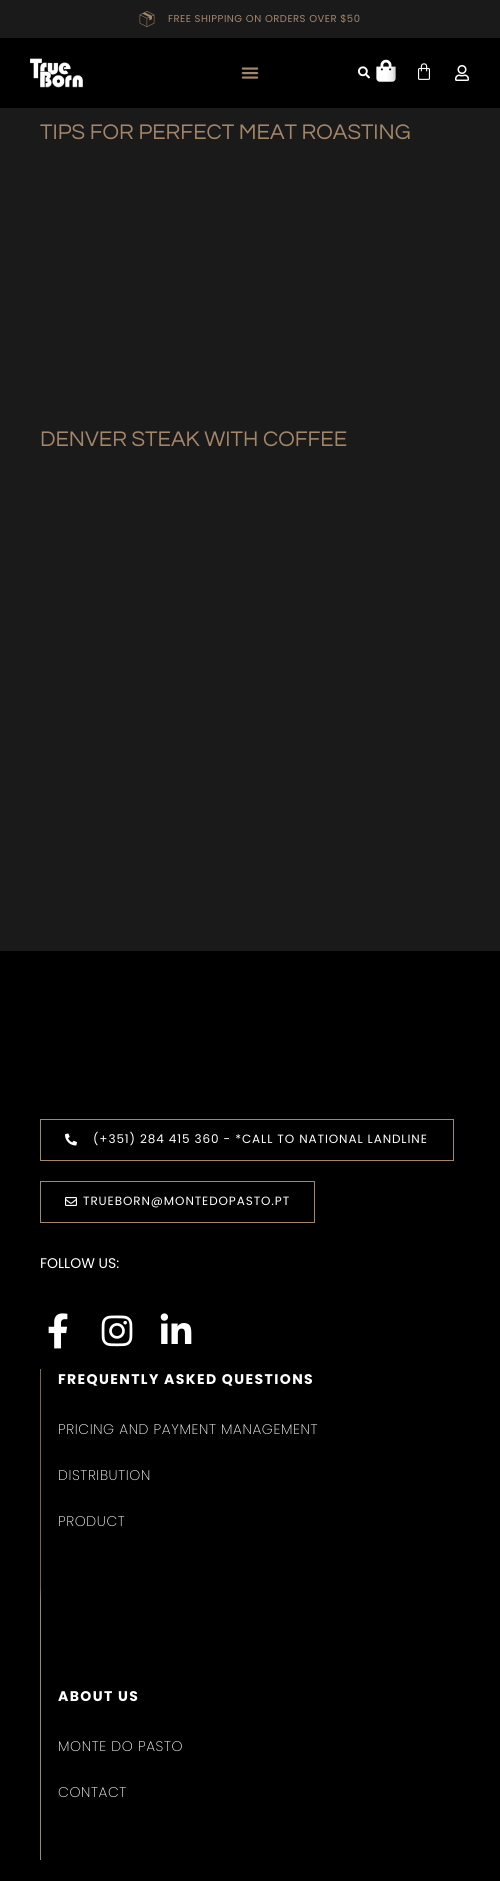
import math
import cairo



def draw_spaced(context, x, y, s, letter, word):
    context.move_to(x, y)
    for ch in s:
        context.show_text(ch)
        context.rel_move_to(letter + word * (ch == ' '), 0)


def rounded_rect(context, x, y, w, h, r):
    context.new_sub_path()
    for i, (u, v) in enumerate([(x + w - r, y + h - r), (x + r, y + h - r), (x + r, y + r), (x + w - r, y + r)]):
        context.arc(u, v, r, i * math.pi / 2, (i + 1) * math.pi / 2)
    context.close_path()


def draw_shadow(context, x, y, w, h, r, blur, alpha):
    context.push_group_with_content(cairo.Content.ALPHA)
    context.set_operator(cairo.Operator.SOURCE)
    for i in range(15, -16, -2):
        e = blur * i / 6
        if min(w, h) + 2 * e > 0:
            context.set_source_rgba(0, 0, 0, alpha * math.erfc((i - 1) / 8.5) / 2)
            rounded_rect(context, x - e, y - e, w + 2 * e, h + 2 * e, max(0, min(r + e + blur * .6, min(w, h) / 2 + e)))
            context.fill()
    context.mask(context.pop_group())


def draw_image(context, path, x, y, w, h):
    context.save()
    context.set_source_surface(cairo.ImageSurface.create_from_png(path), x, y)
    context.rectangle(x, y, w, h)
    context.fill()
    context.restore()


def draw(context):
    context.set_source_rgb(26 / 255, 26 / 255, 26 / 255)
    context.paint()
    draw_image(context, "images/1.png", 139, 11, 16, 16)
    context.set_source_rgb(0, 0, 0)
    context.rectangle(0, 38, 500, 70)
    context.fill()
    draw_image(context, "images/2.png", 30, 58, 53, 30)
    draw_image(context, "images/3.png", 241, 67, 18, 12)
    draw_image(context, "images/6.png", 376, 59, 20, 23)
    context.save()
    context.set_fill_rule(cairo.FillRule.EVEN_ODD)
    context.new_path()
    context.move_to(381, 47)
    context.line_to(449, 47)
    context.line_to(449, 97)
    context.line_to(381, 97)
    context.close_path()
    context.move_to(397, 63)
    context.line_to(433, 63)
    context.line_to(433, 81)
    context.line_to(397, 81)
    context.close_path()
    context.clip()
    context.set_source_rgb(0, 0, 0)
    draw_shadow(context, 397, 63, 36, 18, 0, 5, 0.5)
    context.restore()
    draw_image(context, "images/4.png", 418, 63, 12, 17)
    draw_image(context, "images/5.png", 357, 66, 13, 13)
    draw_image(context, "images/7.png", 455, 65, 14, 16)
    context.rectangle(0, 951, 500, 930)
    context.fill()
    context.rectangle(40.5, 1119.5, 413, 41)
    context.set_source_rgb(164 / 255, 134 / 255, 104 / 255)
    context.set_line_width(1)
    context.stroke()
    draw_image(context, "images/8.png", 65, 1133, 12, 13)
    context.rectangle(40.5, 1181.5, 274, 41)
    context.stroke()
    draw_image(context, "images/9.png", 65, 1197, 12, 9)
    draw_image(context, "images/10.png", 48, 1313, 20, 36)
    draw_image(context, "images/11.png", 101, 1315, 32, 32)
    draw_image(context, "images/12.png", 160, 1313, 32, 31)
    context.rectangle(40, 1369, 1, 491)
    context.fill()
    context.save()
    context.set_fill_rule(cairo.FillRule.EVEN_ODD)
    context.new_path()
    context.move_to(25, 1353)
    context.line_to(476, 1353)
    context.line_to(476, 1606)
    context.line_to(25, 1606)
    context.close_path()
    context.move_to(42, 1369)
    context.line_to(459, 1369)
    context.curve_to(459.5, 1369, 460, 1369.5, 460, 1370)
    context.line_to(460, 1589)
    context.curve_to(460, 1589.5, 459.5, 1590, 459, 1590)
    context.line_to(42, 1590)
    context.curve_to(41.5, 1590, 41, 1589.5, 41, 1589)
    context.line_to(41, 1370)
    context.curve_to(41, 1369.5, 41.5, 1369, 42, 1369)
    context.close_path()
    context.clip()
    context.set_source_rgb(0, 0, 0)
    draw_shadow(context, 41, 1369, 419, 221, 1, 5, 0.5)
    context.restore()
    context.select_font_face("Poppins")
    context.set_font_size(10)
    draw_spaced(context, 168, 22, "FREE SHIPPING ON ORDERS OVER $50", 0.5, 0)
    context.select_font_face("Questrial")
    context.set_font_size(22)
    context.move_to(40, 139)
    context.show_text("TIPS FOR PERFECT MEAT ROASTING")
    context.move_to(40, 446)
    context.show_text("DENVER STEAK WITH COFFEE")
    context.select_font_face("Poppins")
    context.set_font_size(12)
    context.set_source_rgb(1, 1, 1)
    draw_spaced(context, 93, 1143, "(+351) 284 415 360 - *CALL TO NATIONAL LANDLINE", 0.9, 0)
    draw_spaced(context, 83, 1205, "TRUEBORN@MONTEDOPASTO.PT", 0.9, 0)
    context.set_font_size(14)
    context.move_to(40, 1268)
    context.show_text("FOLLOW US:")
    context.select_font_face("Poppins", cairo.FontSlant.NORMAL, cairo.FontWeight.BOLD)
    draw_spaced(context, 58, 1384, "FREQUENTLY ASKED QUESTIONS", 1.4, 0)
    context.select_font_face("Poppins ExtraLight")
    draw_spaced(context, 58, 1434, "PRICING AND PAYMENT MANAGEMENT", 0.6, 0)
    draw_spaced(context, 58, 1480, "DISTRIBUTION", 0.6, 0)
    draw_spaced(context, 58, 1526, "PRODUCT", 0.6, 0)
    context.select_font_face("Poppins", cairo.FontSlant.NORMAL, cairo.FontWeight.BOLD)
    draw_spaced(context, 58, 1701, "ABOUT US", 1.4, 0)
    context.select_font_face("Poppins ExtraLight")
    draw_spaced(context, 58, 1751, "MONTE DO PASTO", 0.6, 0)
    draw_spaced(context, 58, 1797, "CONTACT", 0.6, 0)


surface = cairo.ImageSurface(cairo.Format.RGB24, 500, 1881)
context = cairo.Context(surface)
options = cairo.FontOptions()
options.set_hint_metrics(cairo.HintMetrics.OFF)
options.set_hint_style(cairo.HintStyle.NONE)
context.set_font_options(options)
context.set_miter_limit(4)
draw(context)
surface.write_to_png("out.png")
